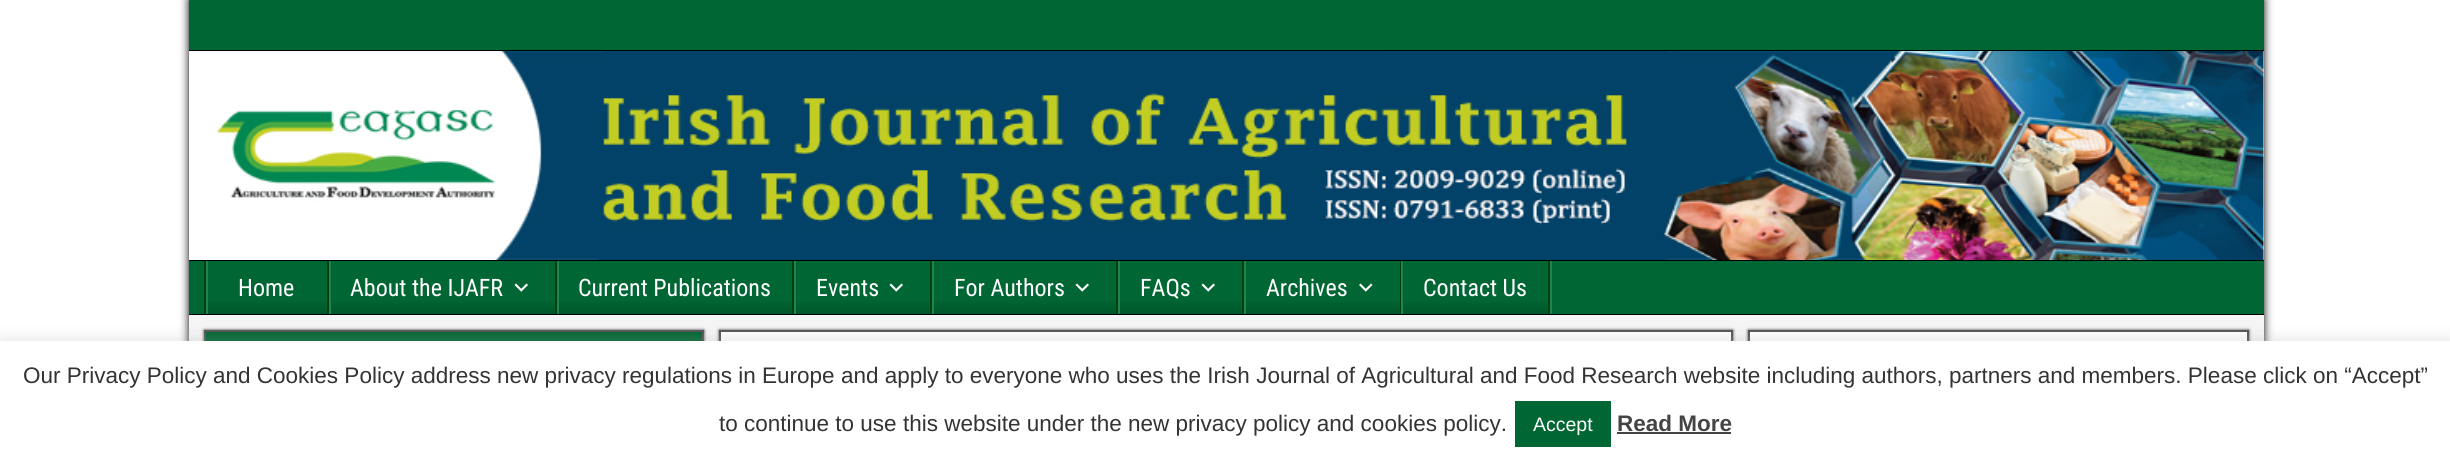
import math
import cairo



def rounded_rect(context, x, y, w, h, r):
    context.new_sub_path()
    for i, (u, v) in enumerate([(x + w - r, y + h - r), (x + r, y + h - r), (x + r, y + r), (x + w - r, y + r)]):
        context.arc(u, v, r, i * math.pi / 2, (i + 1) * math.pi / 2)
    context.close_path()


def draw_shadow(context, x, y, w, h, r, blur, alpha):
    context.push_group_with_content(cairo.Content.ALPHA)
    context.set_operator(cairo.Operator.SOURCE)
    for i in range(15, -16, -2):
        e = blur * i / 6
        if min(w, h) + 2 * e > 0:
            context.set_source_rgba(0, 0, 0, alpha * math.erfc((i - 1) / 8.5) / 2)
            rounded_rect(context, x - e, y - e, w + 2 * e, h + 2 * e, max(0, min(r + e + blur * .6, min(w, h) / 2 + e)))
            context.fill()
    context.mask(context.pop_group())


def draw_image(context, path, x, y, w, h):
    context.save()
    context.set_source_surface(cairo.ImageSurface.create_from_png(path), x, y)
    context.rectangle(x, y, w, h)
    context.fill()
    context.restore()


def draw(context):
    context.set_source_rgb(1, 1, 1)
    context.paint()
    context.set_source_rgb(0, 0, 0)
    draw_shadow(context, 189, 0, 2075, 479, 0, 4.5, 1)
    context.set_source_rgb(0, 102 / 255, 51 / 255)
    context.rectangle(189, 0, 2075, 50)
    context.fill()
    context.set_source_rgb(0, 0, 0)
    context.rectangle(189, 50, 2075, 1)
    context.fill()
    context.set_source_rgb(1, 1, 1)
    context.rectangle(189, 51, 2075, 209)
    context.fill()
    draw_image(context, "images/1.png", 216, 51, 2048, 209)
    context.set_source_rgb(0, 0, 0)
    context.rectangle(189, 260, 2075, 1)
    context.fill()
    context.set_source_rgb(0, 102 / 255, 51 / 255)
    context.rectangle(189, 261, 2075, 53)
    context.fill()
    context.set_source_rgb(0, 0, 0)
    context.rectangle(189, 314, 2075, 1)
    context.fill()
    context.set_source_rgb(30 / 255, 132 / 255, 81 / 255)
    context.rectangle(1550, 261, 2, 53)
    context.fill()
    context.set_source_rgb(0, 62 / 255, 11 / 255)
    context.rectangle(204, 261, 2, 53)
    context.fill()
    gradient = cairo.LinearGradient(267, 261, 267, 314)
    gradient.add_color_stop_rgba(0.7, 0, 102 / 255, 51 / 255, 1)
    gradient.add_color_stop_rgba(1, 0, 87 / 255, 43 / 255, 1)
    context.set_source(gradient)
    context.rectangle(208, 301, 119, 13)
    context.fill()
    context.set_source_rgb(0, 62 / 255, 11 / 255)
    context.rectangle(327, 261, 2, 53)
    context.fill()
    context.set_source_rgb(30 / 255, 132 / 255, 81 / 255)
    context.rectangle(206, 261, 2, 53)
    context.fill()
    gradient = cairo.LinearGradient(443, 261, 443, 314)
    gradient.add_color_stop_rgba(0.7, 0, 102 / 255, 51 / 255, 1)
    gradient.add_color_stop_rgba(1, 0, 87 / 255, 43 / 255, 1)
    context.set_source(gradient)
    context.rectangle(331, 301, 224, 13)
    context.fill()
    context.set_source_rgb(0, 62 / 255, 11 / 255)
    context.rectangle(555, 261, 2, 53)
    context.fill()
    context.set_source_rgb(30 / 255, 132 / 255, 81 / 255)
    context.rectangle(329, 261, 2, 53)
    context.fill()
    draw_image(context, "images/2.png", 514, 283, 14, 9)
    gradient = cairo.LinearGradient(675, 261, 675, 314)
    gradient.add_color_stop_rgba(0.7, 0, 102 / 255, 51 / 255, 1)
    gradient.add_color_stop_rgba(1, 0, 87 / 255, 43 / 255, 1)
    context.set_source(gradient)
    context.rectangle(559, 301, 233, 13)
    context.fill()
    context.set_source_rgb(0, 62 / 255, 11 / 255)
    context.rectangle(792, 261, 2, 53)
    context.fill()
    context.set_source_rgb(30 / 255, 132 / 255, 81 / 255)
    context.rectangle(557, 261, 2, 53)
    context.fill()
    gradient = cairo.LinearGradient(863, 261, 863, 314)
    gradient.add_color_stop_rgba(0.7, 0, 102 / 255, 51 / 255, 1)
    gradient.add_color_stop_rgba(1, 0, 87 / 255, 43 / 255, 1)
    context.set_source(gradient)
    context.rectangle(796, 301, 134, 13)
    context.fill()
    context.set_source_rgb(0, 62 / 255, 11 / 255)
    context.rectangle(930, 261, 2, 53)
    context.fill()
    context.set_source_rgb(30 / 255, 132 / 255, 81 / 255)
    context.rectangle(794, 261, 2, 53)
    context.fill()
    draw_image(context, "images/2.png", 889, 283, 14, 9)
    gradient = cairo.LinearGradient(1025, 261, 1025, 314)
    gradient.add_color_stop_rgba(0.7, 0, 102 / 255, 51 / 255, 1)
    gradient.add_color_stop_rgba(1, 0, 87 / 255, 43 / 255, 1)
    context.set_source(gradient)
    context.rectangle(934, 301, 182, 13)
    context.fill()
    context.set_source_rgb(0, 62 / 255, 11 / 255)
    context.rectangle(1116, 261, 2, 53)
    context.fill()
    context.set_source_rgb(30 / 255, 132 / 255, 81 / 255)
    context.rectangle(932, 261, 2, 53)
    context.fill()
    draw_image(context, "images/2.png", 1075, 283, 14, 9)
    gradient = cairo.LinearGradient(1181, 261, 1181, 314)
    gradient.add_color_stop_rgba(0.7, 0, 102 / 255, 51 / 255, 1)
    gradient.add_color_stop_rgba(1, 0, 87 / 255, 43 / 255, 1)
    context.set_source(gradient)
    context.rectangle(1120, 301, 122, 13)
    context.fill()
    context.set_source_rgb(0, 62 / 255, 11 / 255)
    context.rectangle(1242, 261, 2, 53)
    context.fill()
    context.set_source_rgb(30 / 255, 132 / 255, 81 / 255)
    context.rectangle(1118, 261, 2, 53)
    context.fill()
    draw_image(context, "images/2.png", 1201, 283, 14, 9)
    gradient = cairo.LinearGradient(1322, 261, 1322, 314)
    gradient.add_color_stop_rgba(0.7, 0, 102 / 255, 51 / 255, 1)
    gradient.add_color_stop_rgba(1, 0, 87 / 255, 43 / 255, 1)
    context.set_source(gradient)
    context.rectangle(1246, 301, 154, 13)
    context.fill()
    context.set_source_rgb(0, 62 / 255, 11 / 255)
    context.rectangle(1400, 261, 1, 53)
    context.fill()
    context.set_source_rgb(30 / 255, 132 / 255, 81 / 255)
    context.rectangle(1244, 261, 2, 53)
    context.fill()
    draw_image(context, "images/3.png", 1359, 283, 14, 9)
    gradient = cairo.LinearGradient(1475, 261, 1475, 314)
    gradient.add_color_stop_rgba(0.7, 0, 0, 0, 0)
    gradient.add_color_stop_rgba(1, 0, 0, 0, 0.15)
    context.set_source(gradient)
    context.rectangle(1403, 301, 145, 13)
    context.fill()
    context.set_source_rgb(0, 62 / 255, 11 / 255)
    context.rectangle(1548, 261, 2, 53)
    context.fill()
    context.set_source_rgb(30 / 255, 132 / 255, 81 / 255)
    context.rectangle(1401, 261, 2, 53)
    context.fill()
    context.set_source_rgb(245 / 255, 245 / 255, 245 / 255)
    context.rectangle(189, 315, 2075, 26)
    context.fill()
    context.set_source_rgb(51 / 255, 51 / 255, 51 / 255)
    draw_shadow(context, 204, 330, 500, 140, 0, 1.5, 1)
    context.rectangle(205, 331, 498, 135)
    context.set_source_rgb(85 / 255, 85 / 255, 85 / 255)
    context.stroke()
    context.set_source_rgb(0, 102 / 255, 51 / 255)
    context.rectangle(206, 332, 496, 9)
    context.fill()
    context.set_source_rgb(51 / 255, 51 / 255, 51 / 255)
    draw_shadow(context, 719, 330, 1014, 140, 0, 1.5, 1)
    context.set_source_rgb(1, 1, 1)
    context.rectangle(721, 332, 1010, 9)
    context.fill()
    context.rectangle(720, 331, 1012, 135)
    context.set_source_rgb(85 / 255, 85 / 255, 85 / 255)
    context.stroke()
    context.set_source_rgb(51 / 255, 51 / 255, 51 / 255)
    draw_shadow(context, 1748, 330, 501, 77, 0, 1.5, 1)
    context.set_source_rgb(1, 1, 1)
    context.rectangle(1750, 332, 497, 9)
    context.fill()
    context.rectangle(1749, 331, 499, 75)
    context.set_source_rgb(85 / 255, 85 / 255, 85 / 255)
    context.stroke()
    context.set_source_rgb(172 / 255, 171 / 255, 171 / 255)
    draw_shadow(context, 0, 339, 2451, 125, 0, 7.5, 0.3)
    context.set_source_rgb(1, 1, 1)
    context.rectangle(0, 341, 2450, 124)
    context.fill()
    context.set_source_rgb(0, 102 / 255, 51 / 255)
    context.rectangle(1515, 401, 96, 46)
    context.fill()
    context.set_source_rgb(68 / 255, 68 / 255, 68 / 255)
    context.rectangle(1617, 432, 114, 2)
    context.fill()
    context.select_font_face("Roboto Condensed")
    context.set_font_size(24)
    context.set_source_rgb(1, 1, 1)
    context.move_to(238, 296)
    context.show_text("Home")
    context.move_to(350, 296)
    context.show_text("About the IJAFR")
    context.move_to(578, 296)
    context.show_text("Current Publications")
    context.move_to(816, 296)
    context.show_text("Events")
    context.move_to(954, 296)
    context.show_text("For Authors")
    context.move_to(1140, 296)
    context.show_text("FAQs")
    context.move_to(1266, 296)
    context.show_text("Archives")
    context.move_to(1423, 296)
    context.show_text("Contact Us")
    context.select_font_face("Liberation Sans")
    context.set_font_size(22.5)
    context.set_source_rgb(51 / 255, 51 / 255, 51 / 255)
    context.move_to(23, 383)
    context.show_text("Our Privacy Policy and Cookies Policy address new privacy regulations in Europe and apply to everyone who uses the Irish Journal of Agricultural and Food Research website including authors, partners and members. Please click on “Accept”")
    context.move_to(719, 431)
    context.show_text("to continue to use this website under the new privacy policy and cookies policy.")
    context.set_font_size(19.5)
    context.set_source_rgb(1, 1, 1)
    context.move_to(1533, 431)
    context.show_text("Accept")
    context.select_font_face("Liberation Sans", cairo.FontSlant.NORMAL, cairo.FontWeight.BOLD)
    context.set_font_size(22.5)
    context.set_source_rgb(68 / 255, 68 / 255, 68 / 255)
    context.move_to(1617, 431)
    context.show_text("Read More")


surface = cairo.ImageSurface(cairo.Format.RGB24, 2450, 465)
context = cairo.Context(surface)
options = cairo.FontOptions()
options.set_hint_metrics(cairo.HintMetrics.OFF)
options.set_hint_style(cairo.HintStyle.NONE)
context.set_font_options(options)
context.set_miter_limit(4)
draw(context)
surface.write_to_png("out.png")
